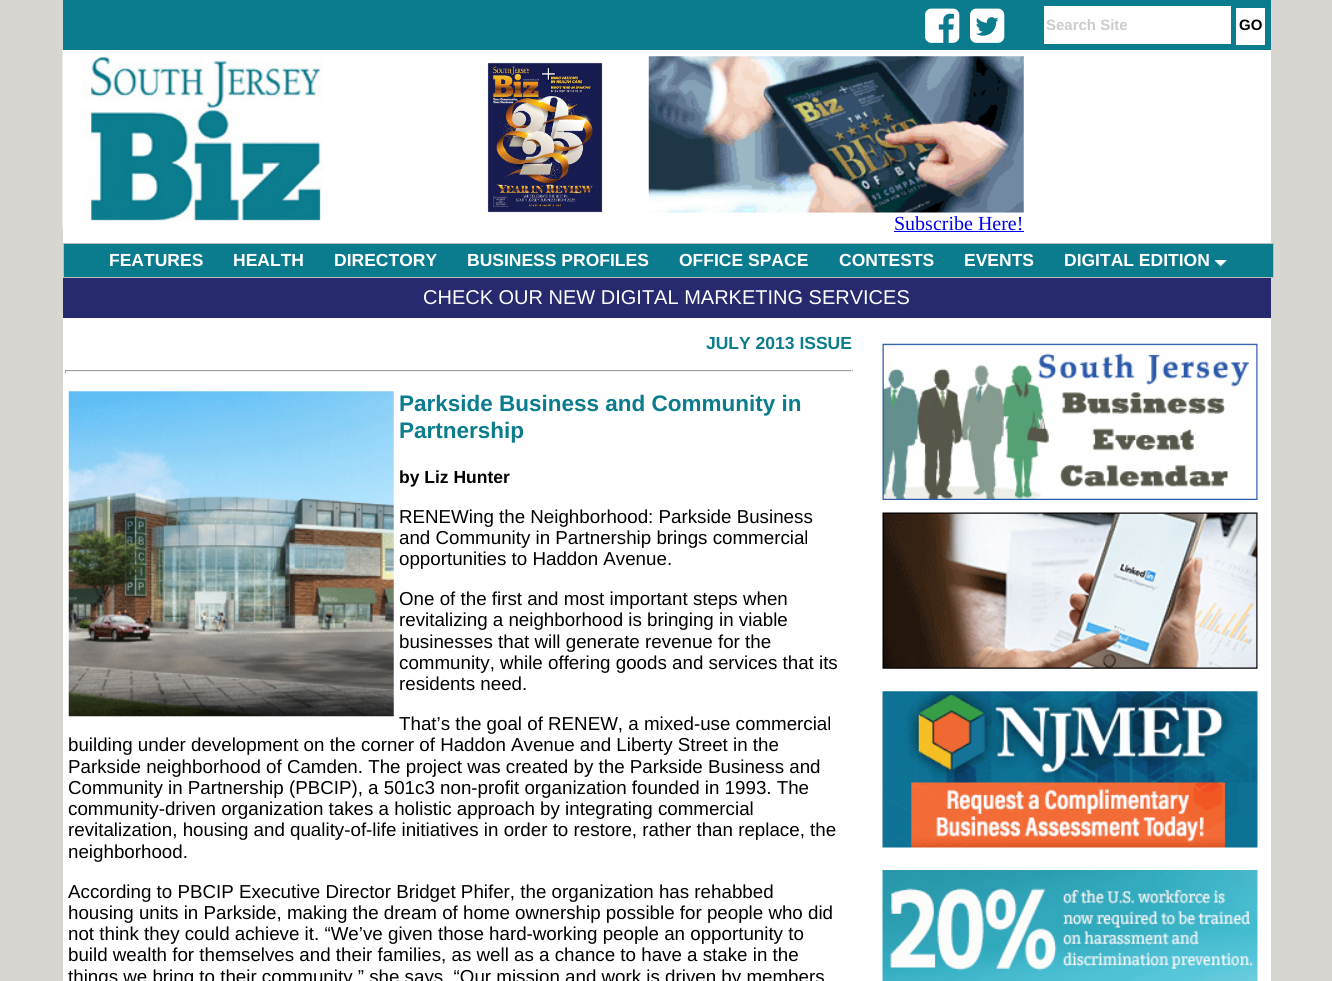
import math
import cairo



def draw_image(context, path, x, y, w, h):
    context.save()
    context.set_source_surface(cairo.ImageSurface.create_from_png(path), x, y)
    context.rectangle(x, y, w, h)
    context.fill()
    context.restore()


def draw(context):
    context.set_source_rgb(216 / 255, 214 / 255, 208 / 255)
    context.paint()
    context.set_source_rgb(1, 1, 1)
    context.rectangle(63, 50, 1208, 931)
    context.fill()
    context.set_source_rgb(11 / 255, 124 / 255, 142 / 255)
    context.rectangle(63, 0, 1208, 50)
    context.fill()
    draw_image(context, "images/1.png", 925, 8, 35, 35)
    draw_image(context, "images/2.png", 970, 8, 35, 35)
    context.set_source_rgb(1, 1, 1)
    context.rectangle(1044, 6, 187, 38)
    context.fill()
    context.rectangle(1236, 8, 29, 37)
    context.fill()
    draw_image(context, "images/3.png", 62, 50, 261, 179)
    draw_image(context, "images/4.png", 487, 62, 116, 151)
    draw_image(context, "images/5.png", 648, 56, 376, 157)
    context.set_source_rgb(0, 0, 238 / 255)
    context.rectangle(894, 231, 130, 1)
    context.fill()
    context.set_source_rgb(11 / 255, 124 / 255, 142 / 255)
    context.rectangle(63.5, 243.5, 1210, 34)
    context.fill_preserve()
    context.set_source_rgb(187 / 255, 187 / 255, 187 / 255)
    context.set_line_width(1)
    context.stroke()
    draw_image(context, "images/6.png", 1215, 260, 12, 7)
    context.set_source_rgb(39 / 255, 42 / 255, 111 / 255)
    context.rectangle(63, 278, 1208, 40)
    context.fill()
    context.set_source_rgb(159 / 255, 159 / 255, 159 / 255)
    context.rectangle(65, 370, 788, 1)
    context.fill()
    context.set_source_rgb(238 / 255, 238 / 255, 238 / 255)
    context.rectangle(851, 370, 1, 3)
    context.fill()
    context.rectangle(65, 371, 788, 1)
    context.fill()
    context.set_source_rgb(159 / 255, 159 / 255, 159 / 255)
    context.rectangle(65, 370, 1, 3)
    context.fill()
    draw_image(context, "images/7.png", 68, 391, 326, 326)
    draw_image(context, "images/8.png", 882, 343, 376, 157)
    draw_image(context, "images/9.png", 882, 512, 376, 157)
    draw_image(context, "images/10.png", 882, 691, 376, 157)
    draw_image(context, "images/11.png", 882, 870, 376, 111)
    context.select_font_face("Liberation Sans", cairo.FontSlant.NORMAL, cairo.FontWeight.BOLD)
    context.set_font_size(15)
    context.set_source_rgb(204 / 255, 204 / 255, 204 / 255)
    context.move_to(1046, 30)
    context.show_text("Search Site")
    context.set_source_rgb(0, 0, 0)
    context.move_to(1239, 30)
    context.show_text("GO")
    context.select_font_face("Liberation Serif")
    context.set_font_size(20)
    context.set_source_rgb(0, 0, 238 / 255)
    context.move_to(894, 230)
    context.show_text("Subscribe Here!")
    context.select_font_face("Liberation Sans", cairo.FontSlant.NORMAL, cairo.FontWeight.BOLD)
    context.set_font_size(17.5)
    context.set_source_rgb(1, 1, 1)
    context.move_to(109, 266)
    context.show_text("FEATURES")
    context.move_to(233, 266)
    context.show_text("HEALTH")
    context.move_to(334, 266)
    context.show_text("DIRECTORY")
    context.move_to(467, 266)
    context.show_text("BUSINESS PROFILES")
    context.move_to(679, 266)
    context.show_text("OFFICE SPACE")
    context.move_to(839, 266)
    context.show_text("CONTESTS")
    context.move_to(964, 266)
    context.show_text("EVENTS")
    context.move_to(1064, 266)
    context.show_text("DIGITAL EDITION")
    context.select_font_face("Liberation Sans")
    context.set_font_size(20)
    context.move_to(423, 304)
    context.show_text("CHECK OUR NEW DIGITAL MARKETING SERVICES")
    context.select_font_face("Liberation Sans", cairo.FontSlant.NORMAL, cairo.FontWeight.BOLD)
    context.set_font_size(17.5)
    context.set_source_rgb(11 / 255, 124 / 255, 142 / 255)
    context.move_to(706, 349)
    context.show_text("JULY 2013 ISSUE")
    context.set_font_size(22.5)
    context.move_to(399, 411)
    context.show_text("Parkside Business and Community in")
    context.move_to(399, 438)
    context.show_text("Partnership")
    context.set_font_size(17.5)
    context.set_source_rgb(0, 0, 0)
    context.move_to(399, 483)
    context.show_text("by Liz Hunter")
    context.select_font_face("Liberation Sans")
    context.set_font_size(18.75)
    context.move_to(399, 523)
    context.show_text("RENEWing the Neighborhood: Parkside Business")
    context.move_to(399, 544)
    context.show_text("and Community in Partnership brings commercial")
    context.move_to(399, 565)
    context.show_text("opportunities to Haddon Avenue.")
    context.move_to(399, 605)
    context.show_text("One of the first and most important steps when")
    context.move_to(399, 626)
    context.show_text("revitalizing a neighborhood is bringing in viable")
    context.move_to(399, 648)
    context.show_text("businesses that will generate revenue for the")
    context.move_to(399, 669)
    context.show_text("community, while offering goods and services that its")
    context.move_to(399, 690)
    context.show_text("residents need.")
    context.move_to(399, 730)
    context.show_text("That’s the goal of RENEW, a mixed-use commercial")
    context.move_to(68, 751)
    context.show_text("building under development on the corner of Haddon Avenue and Liberty Street in the")
    context.move_to(68, 773)
    context.show_text("Parkside neighborhood of Camden. The project was created by the Parkside Business and")
    context.move_to(68, 794)
    context.show_text("Community in Partnership (PBCIP), a 501c3 non-profit organization founded in 1993. The")
    context.move_to(68, 815)
    context.show_text("community-driven organization takes a holistic approach by integrating commercial")
    context.move_to(68, 836)
    context.show_text("revitalization, housing and quality-of-life initiatives in order to restore, rather than replace, the")
    context.move_to(68, 858)
    context.show_text("neighborhood.")
    context.move_to(68, 898)
    context.show_text("According to PBCIP Executive Director Bridget Phifer, the organization has rehabbed")
    context.move_to(68, 919)
    context.show_text("housing units in Parkside, making the dream of home ownership possible for people who did")
    context.move_to(68, 940)
    context.show_text("not think they could achieve it. “We’ve given those hard-working people an opportunity to")
    context.move_to(68, 961)
    context.show_text("build wealth for themselves and their families, as well as a chance to have a stake in the")
    context.move_to(68, 983)
    context.show_text("things we bring to their community,” she says. “Our mission and work is driven by members")


surface = cairo.ImageSurface(cairo.Format.RGB24, 1332, 981)
context = cairo.Context(surface)
options = cairo.FontOptions()
options.set_hint_metrics(cairo.HintMetrics.OFF)
options.set_hint_style(cairo.HintStyle.NONE)
context.set_font_options(options)
context.set_miter_limit(4)
draw(context)
surface.write_to_png("out.png")
